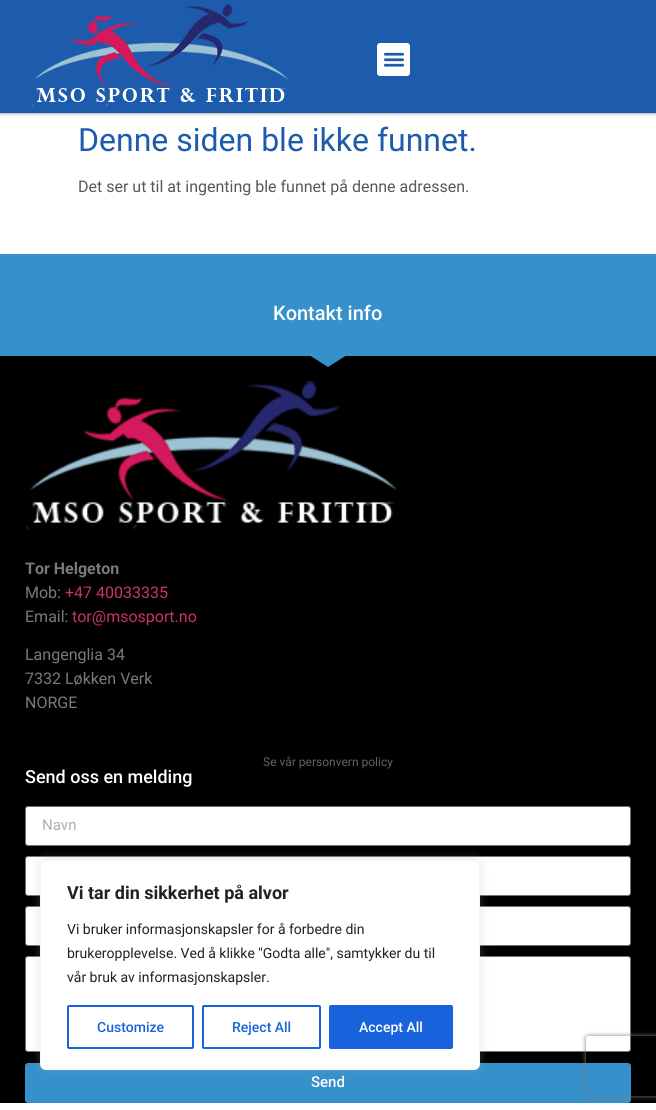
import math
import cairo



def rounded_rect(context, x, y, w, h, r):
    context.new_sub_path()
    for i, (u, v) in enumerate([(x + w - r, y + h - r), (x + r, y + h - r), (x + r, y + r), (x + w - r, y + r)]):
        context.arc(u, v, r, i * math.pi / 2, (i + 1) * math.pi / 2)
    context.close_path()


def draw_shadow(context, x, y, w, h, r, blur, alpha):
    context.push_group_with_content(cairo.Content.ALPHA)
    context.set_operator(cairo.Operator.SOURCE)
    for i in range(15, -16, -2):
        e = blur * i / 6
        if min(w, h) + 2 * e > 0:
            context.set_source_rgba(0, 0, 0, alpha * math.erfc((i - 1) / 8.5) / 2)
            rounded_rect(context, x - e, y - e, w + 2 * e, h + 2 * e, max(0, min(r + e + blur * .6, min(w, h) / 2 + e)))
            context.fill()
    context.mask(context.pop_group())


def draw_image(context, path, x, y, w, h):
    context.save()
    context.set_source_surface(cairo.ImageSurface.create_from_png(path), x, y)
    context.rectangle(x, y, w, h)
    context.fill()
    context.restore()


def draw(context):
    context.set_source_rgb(1, 1, 1)
    context.paint()
    context.set_source_rgb(0, 0, 0)
    draw_shadow(context, 0, 0, 656, 113, 0, 2, 0.5)
    context.set_source_rgb(29 / 255, 91 / 255, 173 / 255)
    context.rectangle(0, 0, 656, 113)
    context.fill()
    draw_image(context, "images/1.png", 32, 4, 256, 103)
    context.set_source_rgb(1, 1, 1)
    rounded_rect(context, 377, 43, 33, 33, 3)
    context.fill()
    draw_image(context, "images/2.png", 383, 52, 22, 15)
    context.set_source_rgb(53 / 255, 144 / 255, 203 / 255)
    context.rectangle(0, 254, 656, 102)
    context.fill()
    context.set_source_rgb(0, 0, 0)
    context.rectangle(0, 356, 656, 747)
    context.fill()
    context.set_source_rgb(53 / 255, 144 / 255, 203 / 255)
    context.new_path()
    context.move_to(328, 367)
    context.line_to(309, 355)
    context.line_to(347, 355)
    context.close_path()
    context.fill()
    draw_image(context, "images/3.png", 26, 381, 371, 149)
    context.set_source_rgb(1, 1, 1)
    rounded_rect(context, 25.5, 806.5, 605, 39, 2.5)
    context.fill_preserve()
    context.set_source_rgb(105 / 255, 114 / 255, 125 / 255)
    context.set_line_width(1)
    context.stroke()
    context.set_source_rgb(1, 1, 1)
    rounded_rect(context, 25.5, 856.5, 605, 39, 2.5)
    context.fill_preserve()
    context.set_source_rgb(105 / 255, 114 / 255, 125 / 255)
    context.stroke()
    context.set_source_rgb(1, 1, 1)
    rounded_rect(context, 25.5, 906.5, 605, 39, 2.5)
    context.fill_preserve()
    context.set_source_rgb(105 / 255, 114 / 255, 125 / 255)
    context.stroke()
    context.set_source_rgb(1, 1, 1)
    rounded_rect(context, 25.5, 956.5, 605, 95, 2.5)
    context.fill_preserve()
    context.set_source_rgb(105 / 255, 114 / 255, 125 / 255)
    context.stroke()
    context.set_source_rgb(53 / 255, 144 / 255, 203 / 255)
    rounded_rect(context, 25, 1063, 606, 40, 3)
    context.fill()
    context.save()
    context.set_fill_rule(cairo.FillRule.EVEN_ODD)
    context.new_path()
    context.move_to(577, 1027)
    context.line_to(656, 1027)
    context.line_to(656, 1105)
    context.line_to(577, 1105)
    context.close_path()
    context.move_to(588, 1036)
    context.line_to(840, 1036)
    context.curve_to(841, 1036, 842, 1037, 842, 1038)
    context.line_to(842, 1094)
    context.curve_to(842, 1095, 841, 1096, 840, 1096)
    context.line_to(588, 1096)
    context.curve_to(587, 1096, 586, 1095, 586, 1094)
    context.line_to(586, 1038)
    context.curve_to(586, 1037, 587, 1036, 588, 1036)
    context.close_path()
    context.clip()
    context.set_source_rgb(128 / 255, 128 / 255, 128 / 255)
    draw_shadow(context, 586, 1036, 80, 60, 2, 2.5, 1)
    context.restore()
    context.set_source_rgb(172 / 255, 171 / 255, 171 / 255)
    draw_shadow(context, 40, 859, 440, 210, 6, 5, 0.3)
    context.set_source_rgb(1, 1, 1)
    rounded_rect(context, 40.5, 860.5, 439, 209, 5.5)
    context.fill_preserve()
    context.set_source_rgb(244 / 255, 244 / 255, 244 / 255)
    context.stroke()
    rounded_rect(context, 68, 1006, 125, 42, 1)
    context.set_source_rgb(24 / 255, 99 / 255, 220 / 255)
    context.set_line_width(2)
    context.stroke()
    rounded_rect(context, 203, 1006, 117, 42, 1)
    context.stroke()
    rounded_rect(context, 330, 1006, 122, 42, 1)
    context.fill_preserve()
    context.stroke()
    context.select_font_face("Roboto")
    context.set_font_size(32)
    context.set_source_rgb(29 / 255, 91 / 255, 173 / 255)
    context.move_to(78, 151)
    context.show_text("Denne siden ble ikke funnet.")
    context.set_font_size(16)
    context.set_source_rgb(84 / 255, 89 / 255, 95 / 255)
    context.move_to(78, 192)
    context.show_text("Det ser ut til at ingenting ble funnet på denne adressen.")
    context.select_font_face("Roboto Medium")
    context.set_font_size(20)
    context.set_source_rgb(1, 1, 1)
    context.move_to(273, 320)
    context.show_text("Kontakt info")
    context.select_font_face("Roboto", cairo.FontSlant.NORMAL, cairo.FontWeight.BOLD)
    context.set_font_size(16)
    context.set_source_rgb(122 / 255, 122 / 255, 122 / 255)
    context.move_to(25, 574)
    context.show_text("Tor Helgeton")
    context.select_font_face("Roboto")
    context.move_to(25, 598)
    context.show_text("Mob:")
    context.set_source_rgb(204 / 255, 51 / 255, 102 / 255)
    context.move_to(65, 598)
    context.show_text("+47 40033335")
    context.set_source_rgb(122 / 255, 122 / 255, 122 / 255)
    context.move_to(25, 622)
    context.show_text("Email:")
    context.set_source_rgb(204 / 255, 51 / 255, 102 / 255)
    context.move_to(72, 622)
    context.show_text("tor@msosport.no")
    context.set_source_rgb(122 / 255, 122 / 255, 122 / 255)
    context.move_to(25, 660)
    context.show_text("Langenglia 34")
    context.move_to(25, 684)
    context.show_text("7332 Løkken Verk")
    context.move_to(25, 708)
    context.show_text("NORGE")
    context.set_font_size(12)
    context.set_source_rgb(99 / 255, 99 / 255, 99 / 255)
    context.move_to(263, 766)
    context.show_text("Se vår personvern policy")
    context.select_font_face("Roboto Medium")
    context.set_font_size(18)
    context.set_source_rgb(1, 1, 1)
    context.move_to(25, 783)
    context.show_text("Send oss en melding")
    context.select_font_face("Roboto")
    context.set_font_size(15)
    context.set_source_rgb(175 / 255, 175 / 255, 175 / 255)
    context.move_to(42, 830)
    context.show_text("Navn")
    context.select_font_face("Roboto Medium")
    context.set_source_rgb(1, 1, 1)
    context.move_to(311, 1087)
    context.show_text("Send")
    context.select_font_face("Roboto", cairo.FontSlant.NORMAL, cairo.FontWeight.BOLD)
    context.set_font_size(18)
    context.set_source_rgb(33 / 255, 33 / 255, 33 / 255)
    context.move_to(67, 899)
    context.show_text("Vi tar din sikkerhet på alvor")
    context.select_font_face("Roboto")
    context.set_font_size(14)
    context.move_to(67, 934)
    context.show_text("Vi bruker informasjonskapsler for å forbedre din")
    context.move_to(67, 958)
    context.show_text("brukeropplevelse. Ved å klikke \"Godta alle\", samtykker du til")
    context.move_to(67, 982)
    context.show_text("vår bruk av informasjonskapsler.")
    context.select_font_face("Roboto Medium")
    context.set_source_rgb(24 / 255, 99 / 255, 220 / 255)
    context.move_to(97, 1032)
    context.show_text("Customize")
    context.move_to(232, 1032)
    context.show_text("Reject All")
    context.set_source_rgb(1, 1, 1)
    context.move_to(359, 1032)
    context.show_text("Accept All")


surface = cairo.ImageSurface(cairo.Format.RGB24, 656, 1110)
context = cairo.Context(surface)
options = cairo.FontOptions()
options.set_hint_metrics(cairo.HintMetrics.OFF)
options.set_hint_style(cairo.HintStyle.NONE)
context.set_font_options(options)
context.set_miter_limit(4)
draw(context)
surface.write_to_png("out.png")
